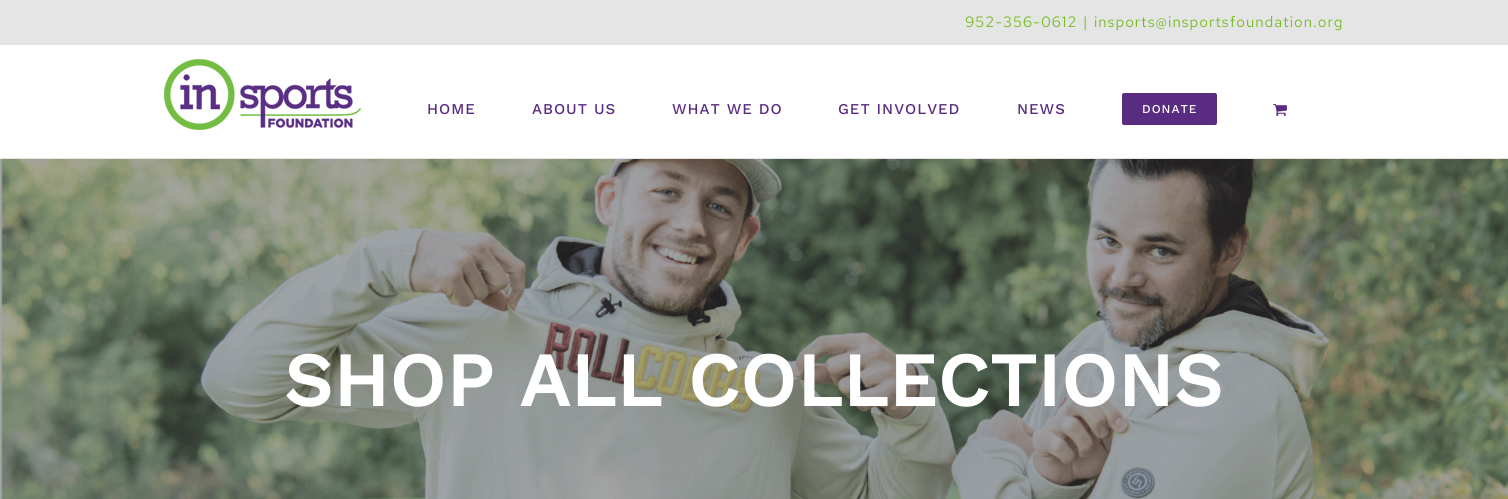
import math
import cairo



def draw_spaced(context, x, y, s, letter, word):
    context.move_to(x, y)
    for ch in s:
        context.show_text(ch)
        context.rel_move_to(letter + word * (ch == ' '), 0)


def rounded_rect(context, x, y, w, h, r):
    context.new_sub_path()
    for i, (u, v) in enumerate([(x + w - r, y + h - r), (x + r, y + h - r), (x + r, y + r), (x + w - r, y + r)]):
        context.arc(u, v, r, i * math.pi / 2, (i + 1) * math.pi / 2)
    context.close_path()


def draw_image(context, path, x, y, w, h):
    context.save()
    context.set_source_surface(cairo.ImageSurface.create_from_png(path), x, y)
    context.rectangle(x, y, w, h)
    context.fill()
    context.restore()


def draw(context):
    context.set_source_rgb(1, 1, 1)
    context.paint()
    context.set_source_rgb(229 / 255, 229 / 255, 229 / 255)
    context.rectangle(0, 0, 1508, 45)
    context.fill()
    context.rectangle(0, 158, 1508, 1)
    context.fill()
    draw_image(context, "images/1.png", 164, 59, 197, 71)
    context.set_source_rgb(89 / 255, 44 / 255, 130 / 255)
    rounded_rect(context, 1122, 93, 95, 32, 2)
    context.fill()
    draw_image(context, "images/2.png", 1273, 104, 14, 12)
    draw_image(context, "images/3.png", 0, 159, 1508, 340)
    context.select_font_face("Red Hat Text")
    context.set_font_size(15)
    context.set_source_rgb(118 / 255, 188 / 255, 33 / 255)
    draw_spaced(context, 965, 27, "952-356-0612", 1, 0)
    draw_spaced(context, 1083, 27, "|", 1, 0)
    draw_spaced(context, 1094, 27, "insports@insportsfoundation.org", 1, 0)
    context.select_font_face("Work Sans Medium")
    context.set_source_rgb(89 / 255, 44 / 255, 130 / 255)
    draw_spaced(context, 427, 114, "HOME", 1, 0)
    draw_spaced(context, 532, 114, "ABOUT US", 1, 0)
    draw_spaced(context, 672, 114, "WHAT WE DO", 1, 0)
    draw_spaced(context, 838, 114, "GET INVOLVED", 1, 0)
    draw_spaced(context, 1017, 114, "NEWS", 1, 0)
    context.set_font_size(12)
    context.set_source_rgb(1, 1, 1)
    draw_spaced(context, 1142, 113, "DONATE", 1, 0)
    context.select_font_face("Work Sans", cairo.FontSlant.NORMAL, cairo.FontWeight.BOLD)
    context.set_font_size(75)
    draw_spaced(context, 284, 406, "SHOP ALL COLLECTIONS", 1, 0)


surface = cairo.ImageSurface(cairo.Format.RGB24, 1508, 499)
context = cairo.Context(surface)
options = cairo.FontOptions()
options.set_hint_metrics(cairo.HintMetrics.OFF)
options.set_hint_style(cairo.HintStyle.NONE)
context.set_font_options(options)
context.set_miter_limit(4)
draw(context)
surface.write_to_png("out.png")
